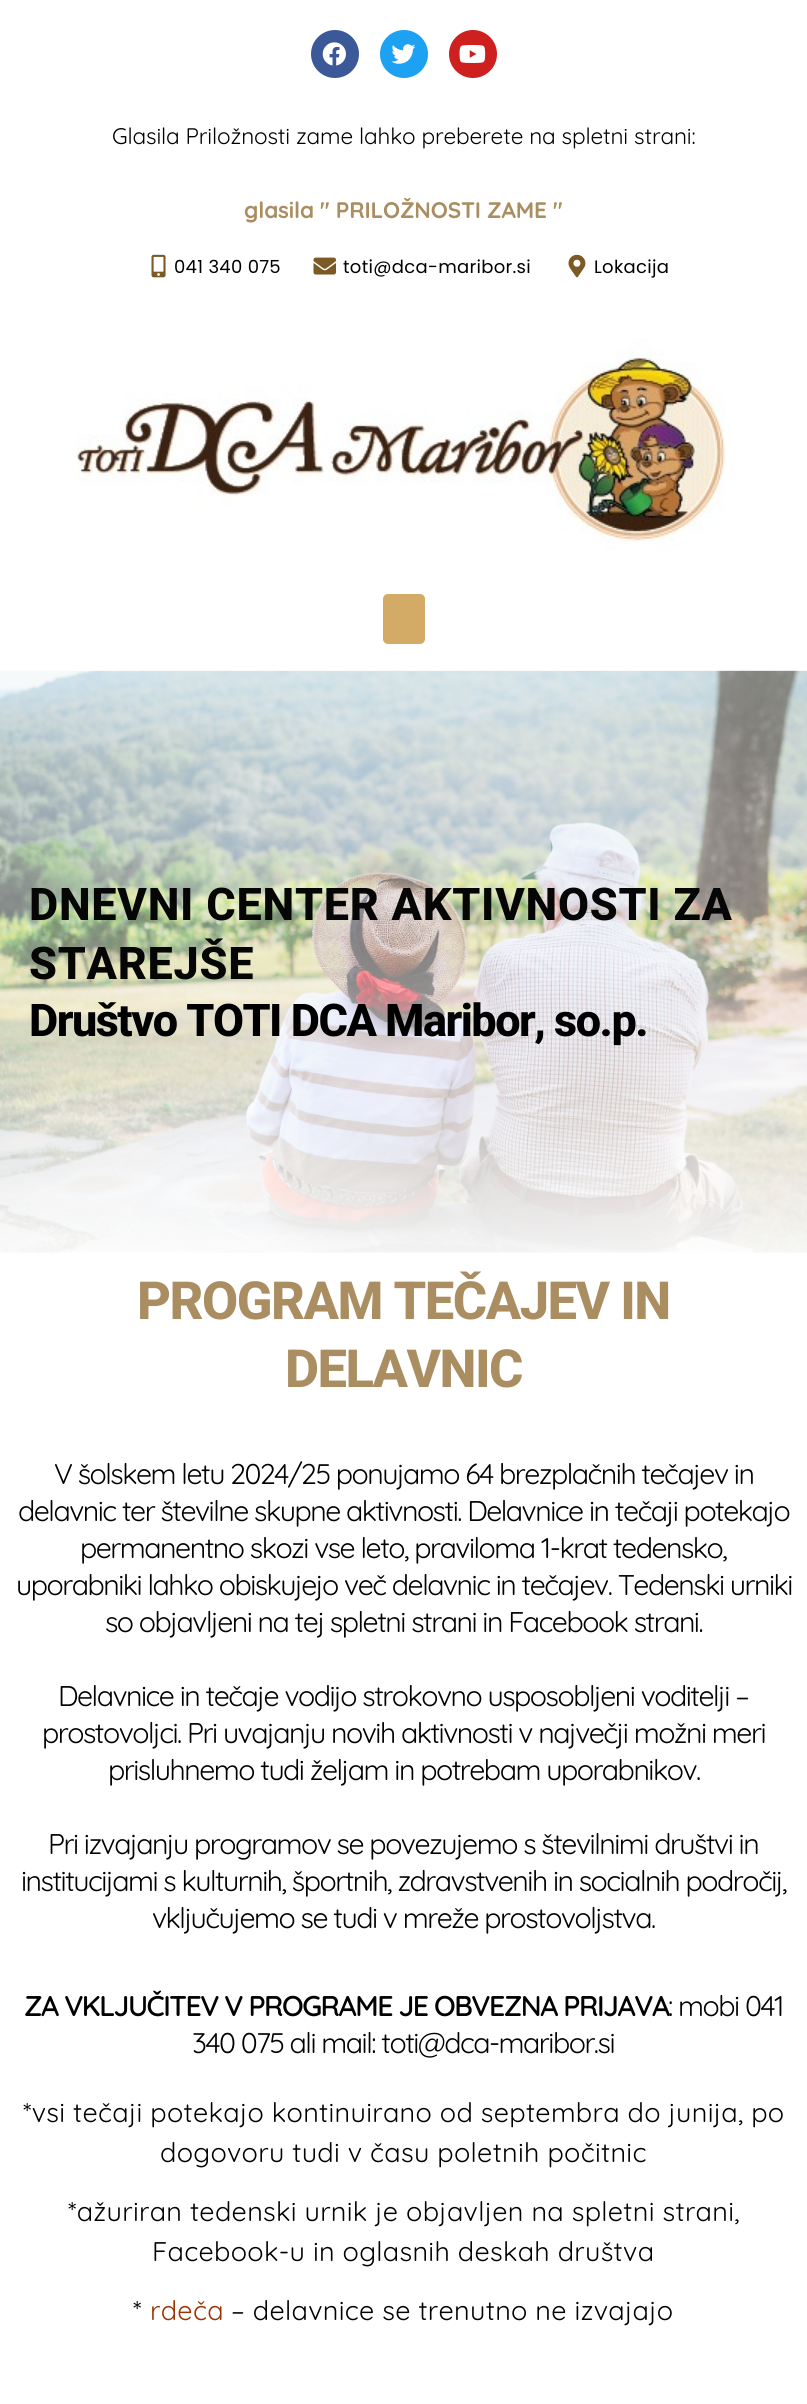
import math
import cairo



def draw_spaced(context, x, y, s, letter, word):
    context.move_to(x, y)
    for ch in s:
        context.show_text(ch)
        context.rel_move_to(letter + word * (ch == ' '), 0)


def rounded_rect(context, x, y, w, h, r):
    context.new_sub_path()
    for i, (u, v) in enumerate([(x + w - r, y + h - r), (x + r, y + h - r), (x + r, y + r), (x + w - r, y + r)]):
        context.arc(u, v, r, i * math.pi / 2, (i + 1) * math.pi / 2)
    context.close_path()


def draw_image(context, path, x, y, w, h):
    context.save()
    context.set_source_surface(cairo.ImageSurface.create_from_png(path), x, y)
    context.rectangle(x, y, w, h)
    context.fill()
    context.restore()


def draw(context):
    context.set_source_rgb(1, 1, 1)
    context.paint()
    context.set_source_rgb(59 / 255, 89 / 255, 152 / 255)
    context.arc(335, 54, 24, 0, 2 * math.pi)
    context.fill()
    draw_image(context, "images/1.png", 322, 42, 24, 24)
    context.set_source_rgb(29 / 255, 161 / 255, 242 / 255)
    context.arc(404, 54, 24, 0, 2 * math.pi)
    context.fill()
    draw_image(context, "images/2.png", 391, 44, 25, 20)
    context.set_source_rgb(205 / 255, 32 / 255, 31 / 255)
    context.arc(473, 54, 24, 0, 2 * math.pi)
    context.fill()
    draw_image(context, "images/3.png", 459, 45, 27, 18)
    draw_image(context, "images/4.png", 151, 254, 15, 24)
    draw_image(context, "images/5.png", 313, 257, 23, 18)
    draw_image(context, "images/6.png", 568, 254, 18, 24)
    draw_image(context, "images/8.png", 0, 670, 807, 583)
    context.set_source_rgba(1, 1, 1, 0.79)
    context.rectangle(0, 670, 807, 1)
    context.fill()
    draw_image(context, "images/7.png", 76, 339, 650, 211)
    context.set_source_rgb(211 / 255, 171 / 255, 102 / 255)
    rounded_rect(context, 383, 594, 42, 50, 5)
    context.fill()
    gradient = cairo.LinearGradient(404, 671, 404, 1253)
    gradient.add_color_stop_rgba(0.43, 1, 1, 1, 0.39)
    gradient.add_color_stop_rgba(1, 1, 1, 1, 0.95)
    context.set_source(gradient)
    context.rectangle(0, 671, 807, 582)
    context.fill()
    context.select_font_face("Quicksand")
    context.set_font_size(22.5)
    context.set_source_rgb(0, 0, 0)
    draw_spaced(context, 112, 144, "Glasila Priložnosti zame lahko preberete na spletni strani:", -0.15, 0)
    context.select_font_face("Quicksand", cairo.FontSlant.NORMAL, cairo.FontWeight.BOLD)
    context.set_source_rgb(170 / 255, 142 / 255, 97 / 255)
    draw_spaced(context, 244, 218, "glasila \" PRILOŽNOSTI ZAME \"", -0.15, 0)
    context.select_font_face("Poppins")
    context.set_font_size(18)
    context.set_source_rgb(0, 0, 0)
    draw_spaced(context, 174, 273, "041 340 075", 0.3, 0)
    draw_spaced(context, 343, 273, "toti@dca-maribor.si", 0.3, 0)
    draw_spaced(context, 594, 273, "Lokacija", 0.3, 0)
    context.select_font_face("Roboto ExtraBold")
    context.set_font_size(45)
    context.set_source_rgb(6 / 255, 6 / 255, 6 / 255)
    draw_spaced(context, 29, 920, "DNEVNI CENTER AKTIVNOSTI ZA", 0.75, 0)
    draw_spaced(context, 29, 979, "STAREJŠE", 0.75, 0)
    context.set_source_rgb(0, 0, 0)
    draw_spaced(context, 29, 1036, "Društvo TOTI DCA Maribor, so.p.", -1.5, 0)
    context.set_font_size(52.5)
    context.set_source_rgb(170 / 255, 142 / 255, 97 / 255)
    draw_spaced(context, 137, 1319, "PROGRAM TEČAJEV IN", -1.5, 0)
    draw_spaced(context, 285, 1387, "DELAVNIC", -1.5, 0)
    context.select_font_face("Quicksand")
    context.set_font_size(28.5)
    context.set_source_rgb(0, 0, 0)
    draw_spaced(context, 54, 1484, "V šolskem letu 2024/25 ponujamo 64 brezplačnih tečajev in", -1.5, 0)
    draw_spaced(context, 18, 1521, "delavnic ter številne skupne aktivnosti. Delavnice in tečaji potekajo", -1.5, 0)
    draw_spaced(context, 80, 1558, "permanentno skozi vse leto, praviloma 1-krat tedensko,", -1.5, 0)
    draw_spaced(context, 16, 1595, "uporabniki lahko obiskujejo več delavnic in tečajev. Tedenski urniki", -1.5, 0)
    draw_spaced(context, 105, 1632, "so objavljeni na tej spletni strani in Facebook strani.", -1.5, 0)
    draw_spaced(context, 58, 1706, "Delavnice in tečaje vodijo strokovno usposobljeni voditelji –", -1.5, 0)
    draw_spaced(context, 42, 1743, "prostovoljci. Pri uvajanju novih aktivnosti v največji možni meri", -1.5, 0)
    draw_spaced(context, 108, 1780, "prisluhnemo tudi željam in potrebam uporabnikov.", -1.5, 0)
    draw_spaced(context, 48, 1854, "Pri izvajanju programov se povezujemo s številnimi društvi in", -1.5, 0)
    draw_spaced(context, 21, 1891, "institucijami s kulturnih, športnih, zdravstvenih in socialnih področij,", -1.5, 0)
    draw_spaced(context, 152, 1928, "vključujemo se tudi v mreže prostovoljstva.", -1.5, 0)
    context.select_font_face("Quicksand SemiBold")
    draw_spaced(context, 24, 2016, "ZA VKLJUČITEV V PROGRAME JE OBVEZNA PRIJAVA", -1.5, 0)
    context.select_font_face("Quicksand")
    draw_spaced(context, 668, 2016, ": mobi 041", -1.5, 0)
    draw_spaced(context, 192, 2053, "340 075 ali mail: toti@dca-maribor.si", -1.5, 0)
    context.set_font_size(27)
    draw_spaced(context, 23, 2122, "*vsi tečaji potekajo kontinuirano od septembra do junija, po", 0.3, 0)
    draw_spaced(context, 160, 2162, "dogovoru tudi v času poletnih počitnic", 0.3, 0)
    draw_spaced(context, 68, 2221, "*ažuriran tedenski urnik je objavljen na spletni strani,", 0.3, 0)
    draw_spaced(context, 152, 2261, "Facebook-u in oglasnih deskah društva", 0.3, 0)
    draw_spaced(context, 133, 2320, "*", 0.3, 0)
    context.set_source_rgb(153 / 255, 51 / 255, 0)
    draw_spaced(context, 150, 2320, "rdeča", 0.3, 0)
    context.set_source_rgb(0, 0, 0)
    draw_spaced(context, 231, 2320, "– delavnice se trenutno ne izvajajo", 0.3, 0)


surface = cairo.ImageSurface(cairo.Format.RGB24, 807, 2404)
context = cairo.Context(surface)
options = cairo.FontOptions()
options.set_hint_metrics(cairo.HintMetrics.OFF)
options.set_hint_style(cairo.HintStyle.NONE)
context.set_font_options(options)
context.set_miter_limit(4)
draw(context)
surface.write_to_png("out.png")
